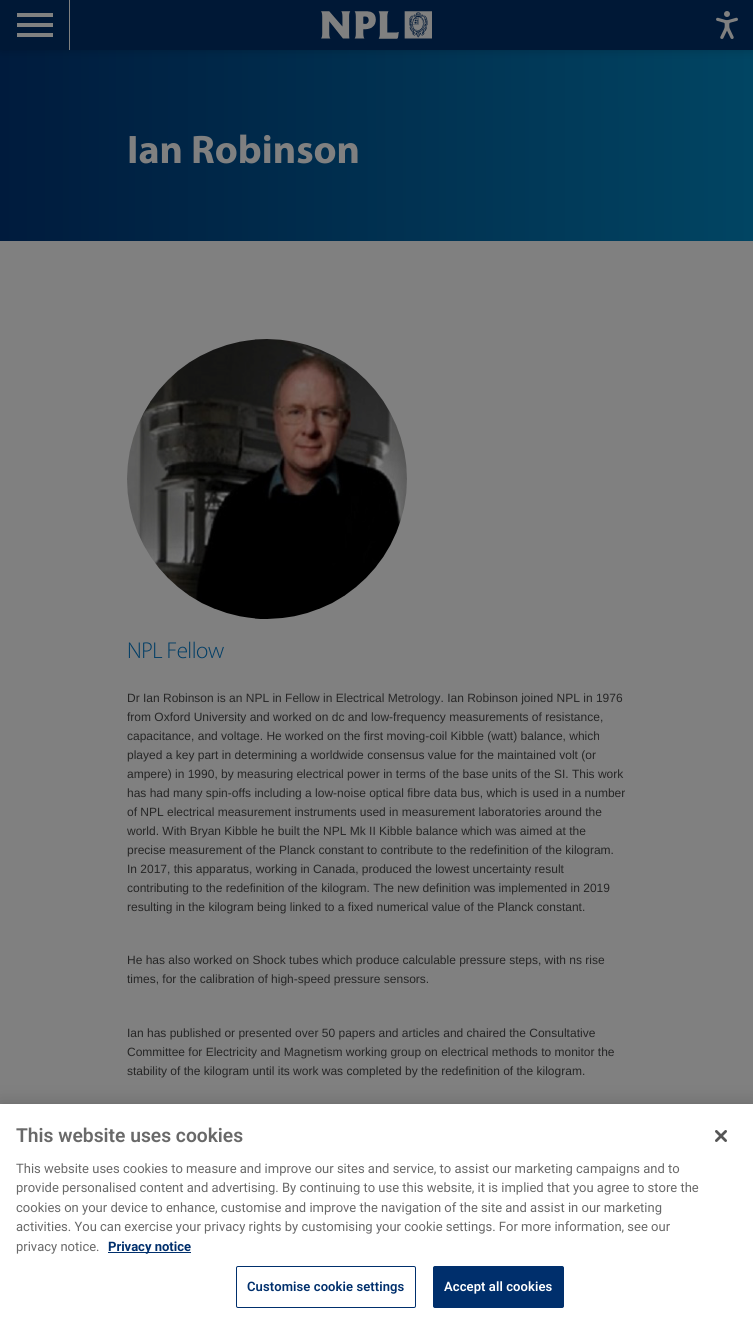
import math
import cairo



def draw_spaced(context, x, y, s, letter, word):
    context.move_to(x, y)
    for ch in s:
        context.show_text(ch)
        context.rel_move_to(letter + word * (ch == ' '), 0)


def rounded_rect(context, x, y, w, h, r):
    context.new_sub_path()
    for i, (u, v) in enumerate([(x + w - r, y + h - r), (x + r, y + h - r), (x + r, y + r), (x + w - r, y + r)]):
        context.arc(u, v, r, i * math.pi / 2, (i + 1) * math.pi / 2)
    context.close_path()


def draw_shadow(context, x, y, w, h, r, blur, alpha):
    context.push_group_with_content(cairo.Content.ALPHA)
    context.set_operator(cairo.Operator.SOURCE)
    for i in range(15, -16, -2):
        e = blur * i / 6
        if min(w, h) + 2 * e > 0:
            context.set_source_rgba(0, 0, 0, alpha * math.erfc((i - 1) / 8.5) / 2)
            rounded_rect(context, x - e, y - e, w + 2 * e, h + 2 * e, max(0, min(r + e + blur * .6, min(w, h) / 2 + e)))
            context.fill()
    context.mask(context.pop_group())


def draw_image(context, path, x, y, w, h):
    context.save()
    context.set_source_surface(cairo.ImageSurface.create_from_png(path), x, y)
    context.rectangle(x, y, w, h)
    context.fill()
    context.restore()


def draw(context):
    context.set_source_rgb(1, 1, 1)
    context.paint()
    gradient = cairo.LinearGradient(0, 146, 753, 145)
    gradient.add_color_stop_rgba(0, 0, 27 / 255, 61 / 255, 1)
    gradient.add_color_stop_rgba(1, 1 / 255, 69 / 255, 99 / 255, 1)
    context.set_source(gradient)
    context.rectangle(0, 50, 753, 191)
    context.fill()
    context.set_source_rgb(0, 0, 0)
    draw_shadow(context, 0, 0, 753, 50, 0, 5, 0.2)
    context.set_source_rgb(0, 24 / 255, 54 / 255)
    context.rectangle(0, 0, 753, 50)
    context.fill()
    context.set_source_rgb(128 / 255, 128 / 255, 128 / 255)
    context.rectangle(69, 0, 1, 50)
    context.fill()
    context.rectangle(17, 23, 36, 4)
    context.fill()
    context.rectangle(17, 13, 36, 4)
    context.fill()
    context.rectangle(17, 33, 36, 4)
    context.fill()
    draw_image(context, "images/1.png", 321, 11, 111, 28)
    draw_image(context, "images/2.png", 716, 11, 22, 28)
    context.rectangle(0, 241, 753, 863)
    context.fill()
    draw_image(context, "images/3.png", 127, 339, 280, 280)
    context.set_source_rgb(0, 0, 0)
    draw_shadow(context, 0, 1104, 753, 220, 0, 9, 0.2)
    context.set_source_rgb(1, 1, 1)
    context.rectangle(0, 1104, 753, 220)
    context.fill()
    context.set_source_rgb(0, 47 / 255, 108 / 255)
    context.rectangle(108, 1252, 83, 1)
    context.fill()
    rounded_rect(context, 236.5, 1266.5, 179, 41, 1.5)
    context.set_line_width(1)
    context.stroke()
    rounded_rect(context, 433.5, 1266.5, 130, 41, 1.5)
    context.fill_preserve()
    context.stroke()
    draw_image(context, "images/4.png", 715, 1130, 12, 12)
    context.select_font_face("Myriad", cairo.FontSlant.NORMAL, cairo.FontWeight.BOLD)
    context.set_font_size(40)
    context.set_source_rgb(128 / 255, 128 / 255, 128 / 255)
    context.move_to(127, 163)
    context.show_text("Ian Robinson")
    context.select_font_face("Myriad Light")
    context.set_font_size(23)
    context.set_source_rgb(0, 61 / 255, 102 / 255)
    draw_spaced(context, 127, 658, "NPL Fellow", -0.5, 0)
    context.select_font_face("Liberation Sans")
    context.set_font_size(12)
    context.set_source_rgb(37 / 255, 37 / 255, 37 / 255)
    context.move_to(127, 702)
    context.show_text("Dr Ian Robinson is an NPL in Fellow in Electrical Metrology. Ian Robinson joined NPL in 1976")
    context.move_to(127, 721)
    context.show_text("from Oxford University and worked on dc and low-frequency measurements of resistance,")
    context.move_to(127, 740)
    context.show_text("capacitance, and voltage. He worked on the first moving-coil Kibble (watt) balance, which")
    context.move_to(127, 759)
    context.show_text("played a key part in determining a worldwide consensus value for the maintained volt (or")
    context.move_to(127, 778)
    context.show_text("ampere) in 1990, by measuring electrical power in terms of the base units of the SI. This work")
    context.move_to(127, 797)
    context.show_text("has had many spin-offs including a low-noise optical fibre data bus, which is used in a number")
    context.move_to(127, 816)
    context.show_text("of NPL electrical measurement instruments used in measurement laboratories around the")
    context.move_to(127, 835)
    context.show_text("world. With Bryan Kibble he built the NPL Mk II Kibble balance which was aimed at the")
    context.move_to(127, 854)
    context.show_text("precise measurement of the Planck constant to contribute to the redefinition of the kilogram.")
    context.move_to(127, 873)
    context.show_text("In 2017, this apparatus, working in Canada, produced the lowest uncertainty result")
    context.move_to(127, 892)
    context.show_text("contributing to the redefinition of the kilogram. The new definition was implemented in 2019")
    context.move_to(127, 911)
    context.show_text("resulting in the kilogram being linked to a fixed numerical value of the Planck constant.")
    context.move_to(127, 964)
    context.show_text("He has also worked on Shock tubes which produce calculable pressure steps, with ns rise")
    context.move_to(127, 983)
    context.show_text("times, for the calibration of high-speed pressure sensors.")
    context.move_to(127, 1037)
    context.show_text("Ian has published or presented over 50 papers and articles and chaired the Consultative")
    context.move_to(127, 1056)
    context.show_text("Committee for Electricity and Magnetism working group on electrical methods to monitor the")
    context.move_to(127, 1075)
    context.show_text("stability of the kilogram until its work was completed by the redefinition of the kilogram.")
    context.select_font_face("Roboto SemiBold")
    context.set_font_size(19.25)
    context.set_source_rgb(105 / 255, 105 / 255, 105 / 255)
    context.move_to(16, 1142)
    context.show_text("This website uses cookies")
    context.select_font_face("Roboto")
    context.set_font_size(13)
    context.move_to(16, 1173)
    context.show_text("This website uses cookies to measure and improve our sites and service, to assist our marketing campaigns and to")
    context.move_to(16, 1192)
    context.show_text("provide personalised content and advertising. By continuing to use this website, it is implied that you agree to store the")
    context.move_to(16, 1212)
    context.show_text("cookies on your device to enhance, customise and improve the navigation of the site and assist in our marketing")
    context.move_to(16, 1231)
    context.show_text("activities. You can exercise your privacy rights by customising your cookie settings. For more information, see our")
    context.move_to(16, 1251)
    context.show_text("privacy notice.")
    context.select_font_face("Roboto", cairo.FontSlant.NORMAL, cairo.FontWeight.BOLD)
    context.set_source_rgb(0, 47 / 255, 108 / 255)
    context.move_to(108, 1251)
    context.show_text("Privacy notice")
    context.select_font_face("Roboto SemiBold")
    draw_spaced(context, 247, 1291, "Customise cookie settings", 0.1, 0)
    context.set_source_rgb(1, 1, 1)
    draw_spaced(context, 444, 1291, "Accept all cookies", 0.1, 0)


surface = cairo.ImageSurface(cairo.Format.RGB24, 753, 1324)
context = cairo.Context(surface)
options = cairo.FontOptions()
options.set_hint_metrics(cairo.HintMetrics.OFF)
options.set_hint_style(cairo.HintStyle.NONE)
context.set_font_options(options)
context.set_miter_limit(4)
draw(context)
surface.write_to_png("out.png")
